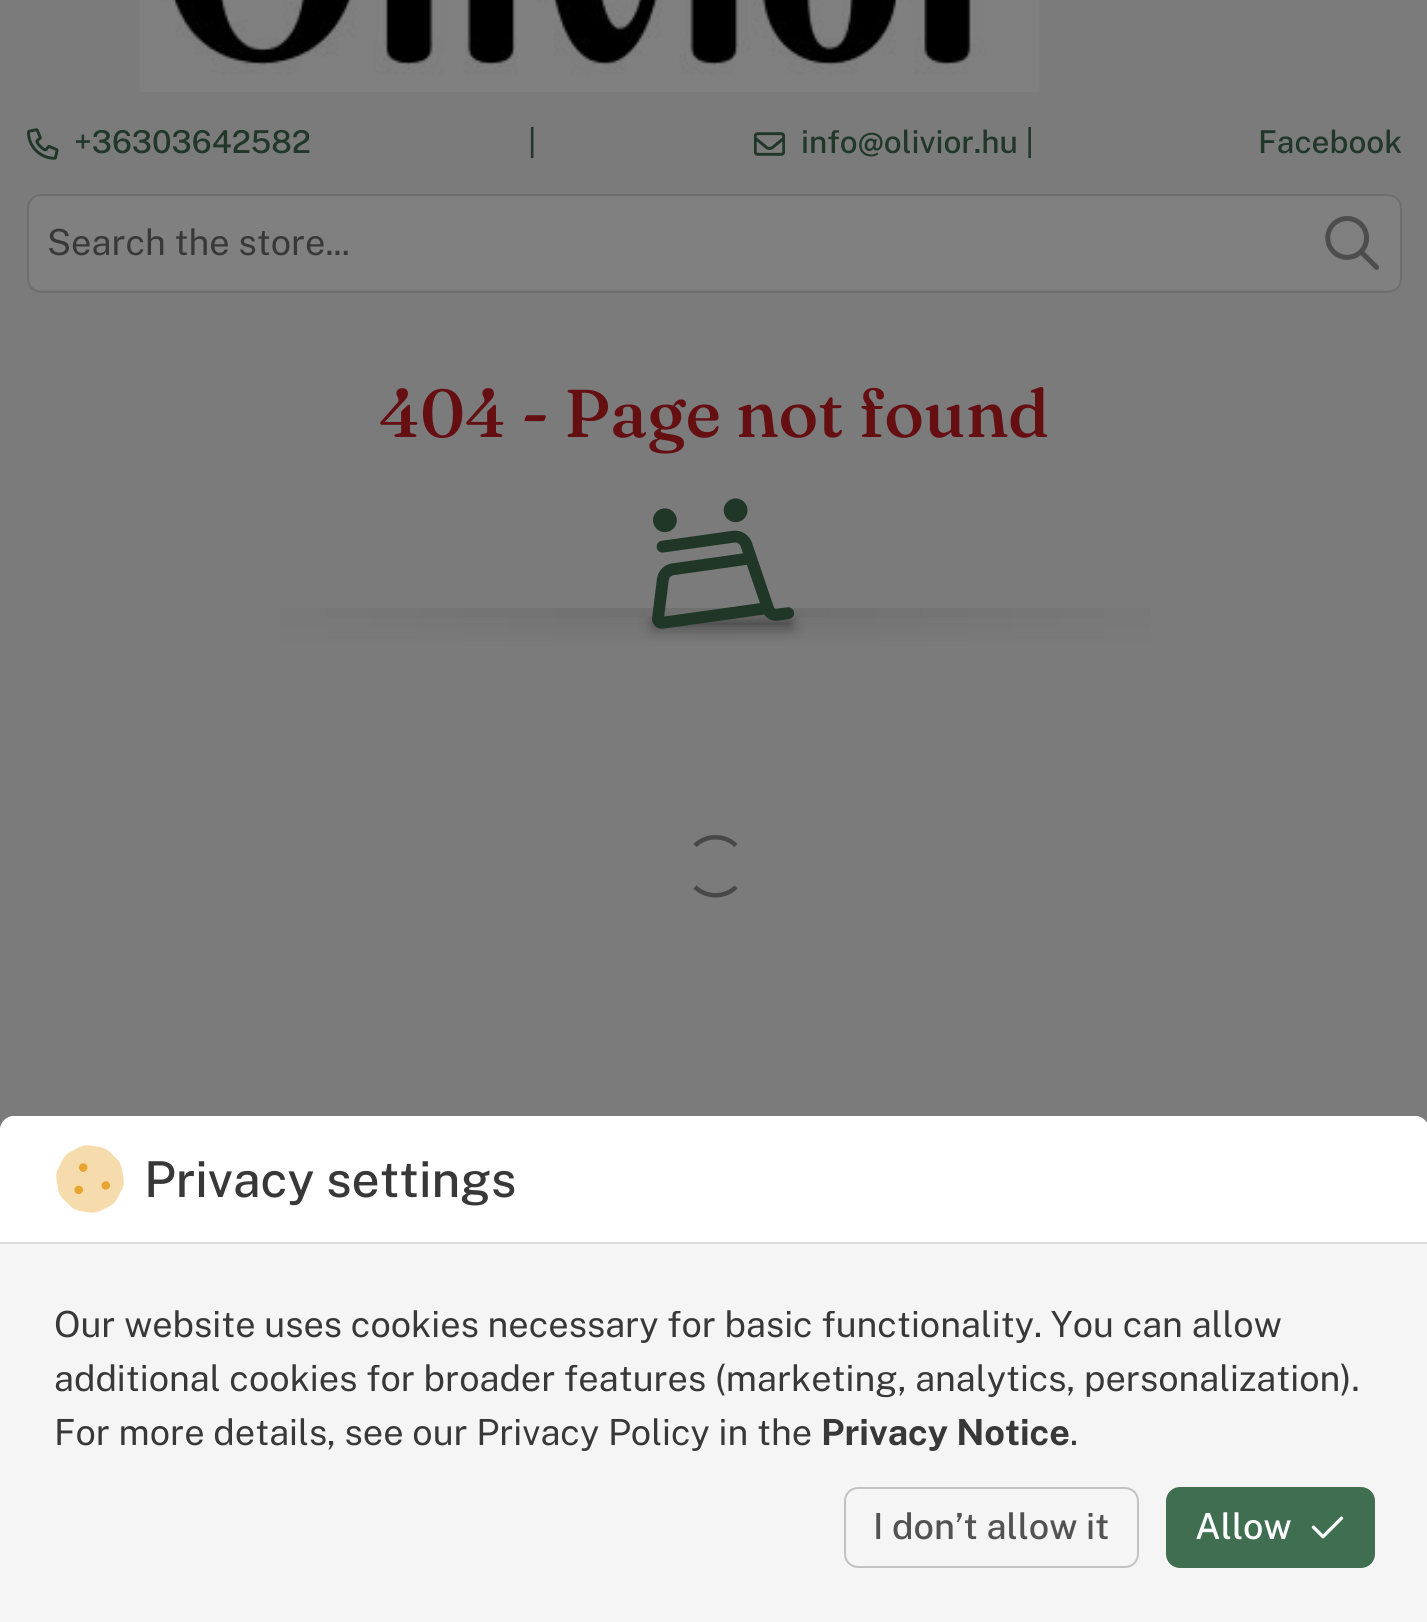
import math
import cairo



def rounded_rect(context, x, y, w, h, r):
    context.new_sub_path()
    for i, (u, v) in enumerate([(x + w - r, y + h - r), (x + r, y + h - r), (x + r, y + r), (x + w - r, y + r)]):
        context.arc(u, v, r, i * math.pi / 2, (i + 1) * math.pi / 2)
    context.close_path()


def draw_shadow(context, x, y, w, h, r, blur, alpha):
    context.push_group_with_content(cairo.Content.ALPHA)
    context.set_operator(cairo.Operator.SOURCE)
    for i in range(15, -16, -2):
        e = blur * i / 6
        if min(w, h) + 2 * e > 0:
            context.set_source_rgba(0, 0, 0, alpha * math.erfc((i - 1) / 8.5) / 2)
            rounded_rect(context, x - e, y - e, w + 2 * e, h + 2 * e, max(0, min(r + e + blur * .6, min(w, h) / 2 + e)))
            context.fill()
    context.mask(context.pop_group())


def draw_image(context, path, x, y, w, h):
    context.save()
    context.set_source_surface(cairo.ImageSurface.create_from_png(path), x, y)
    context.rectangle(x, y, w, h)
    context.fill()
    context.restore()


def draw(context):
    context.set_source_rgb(123 / 255, 123 / 255, 123 / 255)
    context.paint()
    draw_image(context, "images/1.png", 139, 0, 901, 92)
    draw_image(context, "images/2.png", 27, 128, 32, 32)
    draw_image(context, "images/3.png", 754, 132, 31, 24)
    context.set_source_rgb(128 / 255, 128 / 255, 128 / 255)
    rounded_rect(context, 29, 196, 1371, 94, 11)
    context.fill()
    rounded_rect(context, 28, 195, 1373, 97, 13)
    context.set_source_rgb(110 / 255, 110 / 255, 110 / 255)
    context.stroke()
    draw_image(context, "images/4.png", 1325, 216, 54, 54)
    gradient = cairo.LinearGradient(28, 629, 1403, 629)
    gradient.add_color_stop_rgba(0.1, 123 / 255, 123 / 255, 123 / 255, 1)
    gradient.add_color_stop_rgba(0.5, 111 / 255, 111 / 255, 111 / 255, 1)
    gradient.add_color_stop_rgba(0.9, 123 / 255, 123 / 255, 123 / 255, 1)
    context.set_source(gradient)
    context.rectangle(280, 608, 871, 42)
    context.fill()
    gradient = cairo.LinearGradient(716, 650, 716, 608)
    gradient.add_color_stop_rgba(0, 123 / 255, 123 / 255, 123 / 255, 1)
    gradient.add_color_stop_rgba(1, 123 / 255, 123 / 255, 123 / 255, 0)
    context.set_source(gradient)
    context.rectangle(280, 617, 871, 33)
    context.fill()
    context.save()
    context.set_fill_rule(cairo.FillRule.EVEN_ODD)
    context.new_path()
    context.move_to(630, 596)
    context.line_to(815, 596)
    context.line_to(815, 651)
    context.line_to(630, 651)
    context.close_path()
    context.move_to(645.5, 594)
    context.line_to(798, 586)
    context.line_to(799, 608.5)
    context.line_to(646.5, 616.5)
    context.close_path()
    context.clip()
    context.set_source_rgb(64 / 255, 64 / 255, 64 / 255)
    draw_shadow(context, 655, 621, 135, 5, 0, 8, 1)
    context.restore()
    draw_image(context, "images/5.png", 652, 498, 142, 131)
    context.new_path()
    context.move_to(695, 845.5)
    context.curve_to(706, 834.5, 725, 834.5, 736, 845.5)
    context.move_to(736, 887)
    context.curve_to(725, 898, 706, 898, 695, 887)
    context.set_source_rgb(72 / 255, 72 / 255, 72 / 255)
    context.set_line_width(4.5)
    context.stroke()
    context.set_source_rgb(245 / 255, 245 / 255, 245 / 255)
    context.new_path()
    context.move_to(14, 1116)
    context.line_to(1415, 1116)
    context.curve_to(1422.5, 1116, 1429, 1122.5, 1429, 1130)
    context.line_to(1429, 1622)
    context.line_to(0, 1622)
    context.line_to(0, 1130)
    context.curve_to(0, 1122.5, 6.5, 1116, 14, 1116)
    context.close_path()
    context.fill()
    context.set_source_rgb(1, 1, 1)
    context.new_path()
    context.move_to(14, 1116)
    context.line_to(1415, 1116)
    context.curve_to(1422.5, 1116, 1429, 1122.5, 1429, 1130)
    context.line_to(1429, 1244)
    context.line_to(0, 1244)
    context.line_to(0, 1130)
    context.curve_to(0, 1122.5, 6.5, 1116, 14, 1116)
    context.close_path()
    context.fill()
    context.set_source_rgb(219 / 255, 219 / 255, 219 / 255)
    context.rectangle(0, 1242, 1427, 2)
    context.fill()
    draw_image(context, "images/6.png", 56, 1145, 68, 68)
    rounded_rect(context, 845, 1488, 293, 79, 13)
    context.set_source_rgb(194 / 255, 194 / 255, 194 / 255)
    context.set_line_width(2)
    context.stroke()
    context.set_source_rgb(64 / 255, 110 / 255, 81 / 255)
    rounded_rect(context, 1167, 1488, 207, 79, 13)
    context.fill_preserve()
    context.stroke()
    draw_image(context, "images/7.png", 1311, 1516, 33, 23)
    context.select_font_face("Public Sans Medium")
    context.set_font_size(31.5)
    context.set_source_rgb(32 / 255, 55 / 255, 41 / 255)
    context.move_to(74, 153)
    context.show_text("+36303642582")
    context.move_to(528, 153)
    context.show_text("|")
    context.move_to(801, 153)
    context.show_text("info@olivior.hu |")
    context.move_to(1258, 153)
    context.show_text("Facebook")
    context.select_font_face("Public Sans")
    context.set_font_size(36)
    context.set_source_rgb(56 / 255, 56 / 255, 56 / 255)
    context.move_to(47, 255)
    context.show_text("Search the store...")
    context.select_font_face("Fraunces Medium")
    context.set_font_size(67.5)
    context.set_source_rgb(101 / 255, 15 / 255, 19 / 255)
    context.move_to(379, 437)
    context.show_text("404 - Page not found")
    context.select_font_face("Public Sans Medium")
    context.set_font_size(49.5)
    context.set_source_rgb(56 / 255, 56 / 255, 56 / 255)
    context.move_to(144, 1197)
    context.show_text("Privacy settings")
    context.select_font_face("Public Sans")
    context.set_font_size(36)
    context.move_to(54, 1337)
    context.show_text("Our website uses cookies necessary for basic functionality. You can allow")
    context.move_to(54, 1391)
    context.show_text("additional cookies for broader features (marketing, analytics, personalization).")
    context.move_to(54, 1445)
    context.show_text("For more details, see our Privacy Policy in the")
    context.select_font_face("Public Sans", cairo.FontSlant.NORMAL, cairo.FontWeight.BOLD)
    context.move_to(821, 1445)
    context.show_text("Privacy Notice")
    context.select_font_face("Public Sans")
    context.move_to(1070, 1445)
    context.show_text(".")
    context.select_font_face("Public Sans Medium")
    context.set_source_rgb(82 / 255, 82 / 255, 82 / 255)
    context.move_to(873, 1539)
    context.show_text("I don’t allow it")
    context.set_source_rgb(1, 1, 1)
    context.move_to(1195, 1539)
    context.show_text("Allow")


surface = cairo.ImageSurface(cairo.Format.RGB24, 1427, 1622)
context = cairo.Context(surface)
options = cairo.FontOptions()
options.set_hint_metrics(cairo.HintMetrics.OFF)
options.set_hint_style(cairo.HintStyle.NONE)
context.set_font_options(options)
context.set_miter_limit(4)
draw(context)
surface.write_to_png("out.png")
